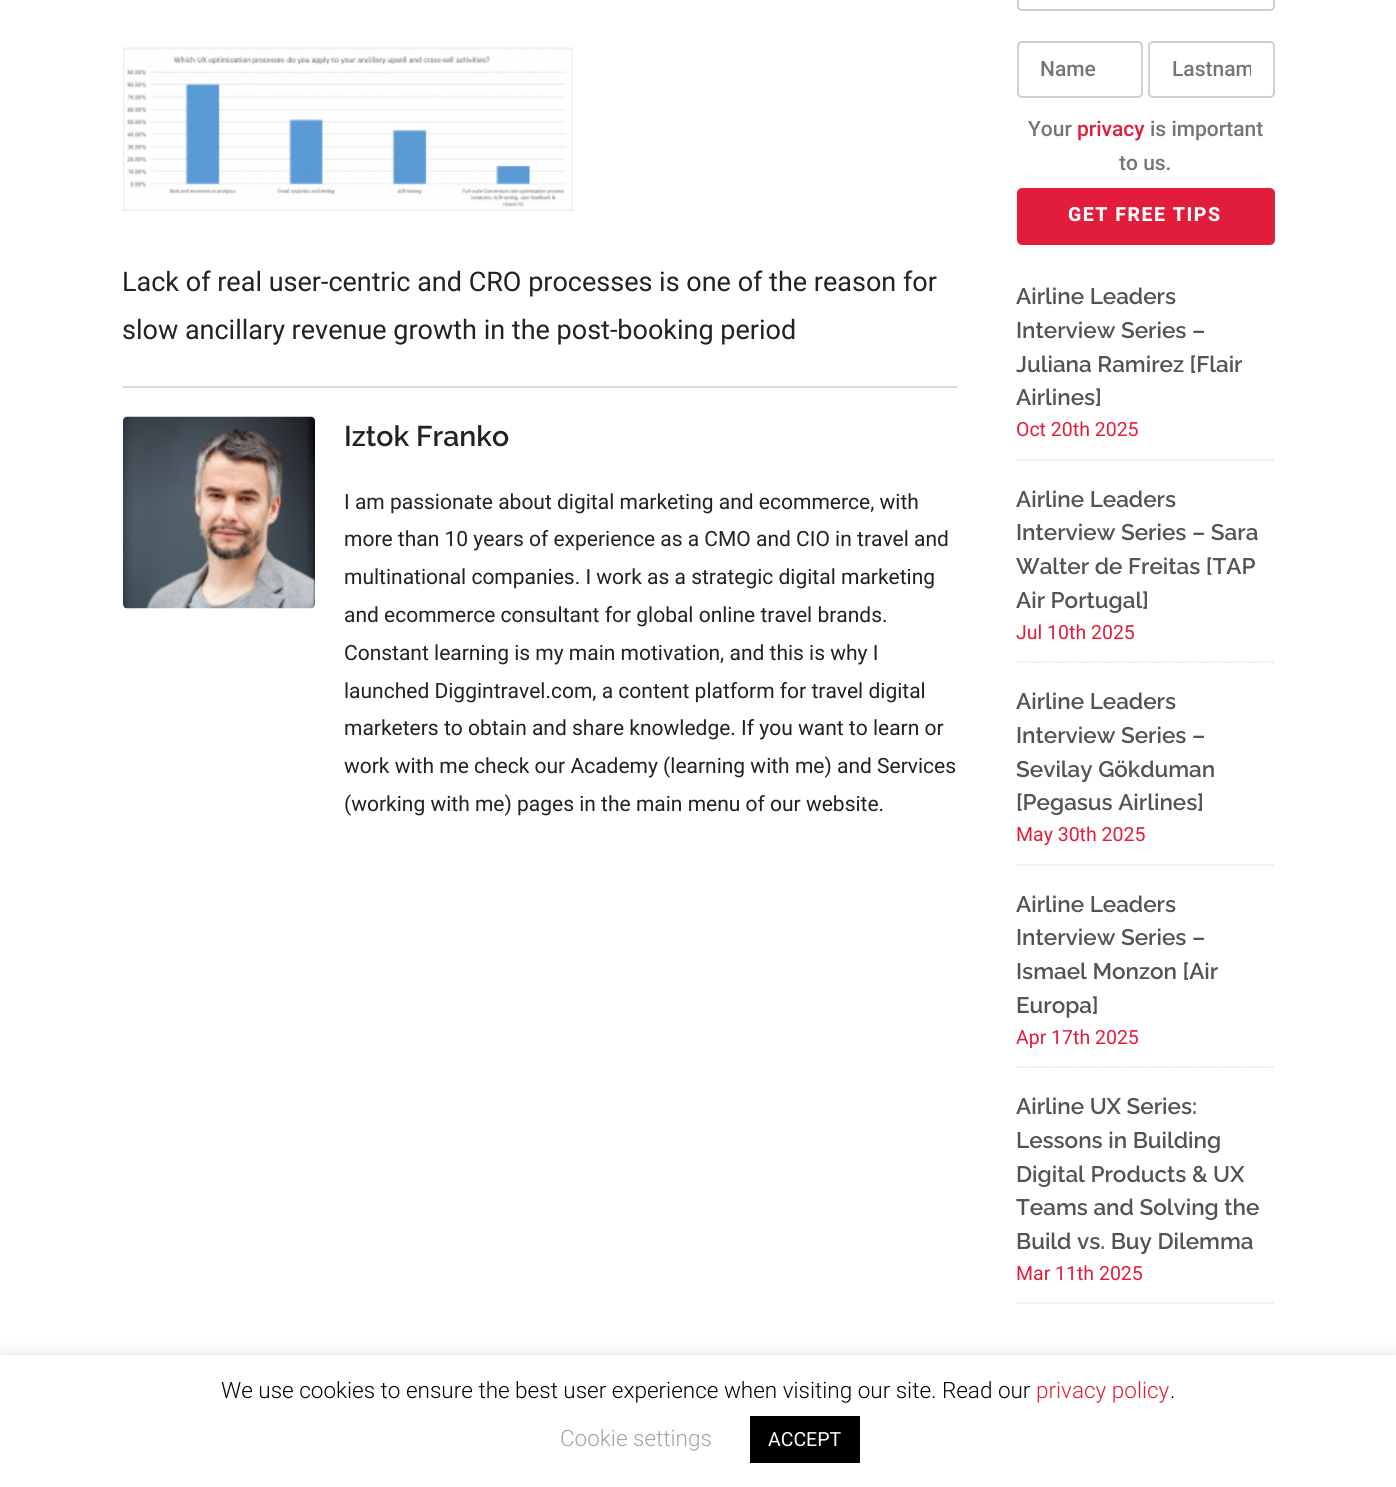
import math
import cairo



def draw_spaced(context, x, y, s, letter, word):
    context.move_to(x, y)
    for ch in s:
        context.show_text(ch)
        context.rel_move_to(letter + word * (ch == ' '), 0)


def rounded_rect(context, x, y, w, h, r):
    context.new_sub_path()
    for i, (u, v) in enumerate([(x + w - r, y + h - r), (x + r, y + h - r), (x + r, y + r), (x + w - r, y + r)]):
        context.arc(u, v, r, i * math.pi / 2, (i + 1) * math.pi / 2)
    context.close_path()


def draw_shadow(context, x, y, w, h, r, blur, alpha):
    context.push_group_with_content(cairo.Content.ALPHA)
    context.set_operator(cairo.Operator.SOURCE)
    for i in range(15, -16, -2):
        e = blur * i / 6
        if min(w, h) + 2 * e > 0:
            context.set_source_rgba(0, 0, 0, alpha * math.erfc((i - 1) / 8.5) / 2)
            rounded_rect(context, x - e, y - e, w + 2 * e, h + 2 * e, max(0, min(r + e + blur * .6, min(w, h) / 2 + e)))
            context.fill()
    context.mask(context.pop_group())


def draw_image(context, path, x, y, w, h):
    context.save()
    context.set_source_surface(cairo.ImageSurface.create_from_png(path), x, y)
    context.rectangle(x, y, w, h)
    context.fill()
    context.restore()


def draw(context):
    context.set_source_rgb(1, 1, 1)
    context.paint()
    draw_image(context, "images/1.png", 123, 47, 450, 164)
    context.set_source_rgb(218 / 255, 218 / 255, 218 / 255)
    context.rectangle(123, 386, 834, 2)
    context.fill()
    draw_image(context, "images/2.png", 123, 416, 192, 193)
    rounded_rect(context, 1018, -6, 256, 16, 4)
    context.set_source_rgb(207 / 255, 207 / 255, 207 / 255)
    context.stroke()
    rounded_rect(context, 1018, 42, 124, 55, 4)
    context.stroke()
    rounded_rect(context, 1149, 42, 125, 55, 4)
    context.stroke()
    context.set_source_rgb(226 / 255, 29 / 255, 59 / 255)
    rounded_rect(context, 1018.5, 189.5, 255, 54, 3.5)
    context.fill_preserve()
    context.set_line_width(3)
    context.stroke()
    context.new_path()
    context.move_to(1017, 460)
    context.line_to(1275, 460)
    context.set_source_rgb(223 / 255, 223 / 255, 223 / 255)
    context.set_line_width(1.5)
    context.set_dash([1.5, 1.5])
    context.stroke()
    context.new_path()
    context.move_to(1017, 662)
    context.line_to(1275, 662)
    context.stroke()
    context.new_path()
    context.move_to(1017, 865)
    context.line_to(1275, 865)
    context.stroke()
    context.new_path()
    context.move_to(1017, 1067)
    context.line_to(1275, 1067)
    context.stroke()
    context.new_path()
    context.move_to(1017, 1303)
    context.line_to(1275, 1303)
    context.stroke()
    context.set_source_rgb(172 / 255, 171 / 255, 171 / 255)
    draw_shadow(context, 0, 1353, 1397, 134, 0, 7.5, 0.3)
    context.set_source_rgb(1, 1, 1)
    context.rectangle(0, 1355, 1396, 132)
    context.fill()
    context.set_source_rgb(0, 0, 0)
    context.rectangle(750, 1416, 110, 47)
    context.fill()
    context.select_font_face("Roboto")
    context.set_font_size(27)
    context.set_source_rgb(34 / 255, 34 / 255, 34 / 255)
    context.move_to(122, 291)
    context.show_text("Lack of real user-centric and CRO processes is one of the reason for")
    context.move_to(122, 339)
    context.show_text("slow ancillary revenue growth in the post-booking period")
    context.select_font_face("Raleway SemiBold")
    context.set_font_size(28.5)
    context.move_to(344, 446)
    context.show_text("Iztok Franko")
    context.select_font_face("Roboto")
    context.set_font_size(21)
    context.move_to(344, 509)
    context.show_text("I am passionate about digital marketing and ecommerce, with")
    context.move_to(344, 546)
    context.show_text("more than 10 years of experience as a CMO and CIO in travel and")
    context.move_to(344, 584)
    context.show_text("multinational companies. I work as a strategic digital marketing")
    context.move_to(344, 622)
    context.show_text("and ecommerce consultant for global online travel brands.")
    context.move_to(344, 660)
    context.show_text("Constant learning is my main motivation, and this is why I")
    context.move_to(344, 698)
    context.show_text("launched Diggintravel.com, a content platform for travel digital")
    context.move_to(344, 735)
    context.show_text("marketers to obtain and share knowledge. If you want to learn or")
    context.move_to(344, 773)
    context.show_text("work with me check our Academy (learning with me) and Services")
    context.move_to(344, 811)
    context.show_text("(working with me) pages in the main menu of our website.")
    context.select_font_face("Roboto Medium")
    context.set_source_rgb(117 / 255, 117 / 255, 117 / 255)
    context.move_to(1040, 76)
    context.show_text("Name")
    context.save()
    context.rectangle(1172, 57, 79, 24)
    context.clip()
    context.move_to(1172, 76)
    context.show_text("Lastnam")
    context.restore()
    context.move_to(1028, 136)
    context.show_text("Your")
    context.set_source_rgb(226 / 255, 29 / 255, 59 / 255)
    context.move_to(1077, 136)
    context.show_text("privacy")
    context.set_source_rgb(117 / 255, 117 / 255, 117 / 255)
    context.move_to(1150, 136)
    context.show_text("is important")
    context.move_to(1119, 170)
    context.show_text("to us.")
    context.select_font_face("Roboto ExtraBold")
    context.set_font_size(19.5)
    context.set_source_rgb(1, 1, 1)
    draw_spaced(context, 1068, 221, "GET FREE TIPS", 1.5, 0)
    context.select_font_face("Raleway SemiBold")
    context.set_font_size(22.5)
    context.set_source_rgb(83 / 255, 83 / 255, 83 / 255)
    context.move_to(1016, 304)
    context.show_text("Airline Leaders")
    context.move_to(1016, 338)
    context.show_text("Interview Series –")
    context.move_to(1016, 372)
    context.show_text("Juliana Ramirez [Flair")
    context.move_to(1016, 405)
    context.show_text("Airlines]")
    context.select_font_face("Roboto")
    context.set_font_size(19.5)
    context.set_source_rgb(226 / 255, 29 / 255, 59 / 255)
    context.move_to(1016, 436)
    context.show_text("Oct 20th 2025")
    context.select_font_face("Raleway SemiBold")
    context.set_font_size(22.5)
    context.set_source_rgb(83 / 255, 83 / 255, 83 / 255)
    context.move_to(1016, 507)
    context.show_text("Airline Leaders")
    context.move_to(1016, 540)
    context.show_text("Interview Series – Sara")
    context.move_to(1016, 574)
    context.show_text("Walter de Freitas [TAP")
    context.move_to(1016, 608)
    context.show_text("Air Portugal]")
    context.select_font_face("Roboto")
    context.set_font_size(19.5)
    context.set_source_rgb(226 / 255, 29 / 255, 59 / 255)
    context.move_to(1016, 639)
    context.show_text("Jul 10th 2025")
    context.select_font_face("Raleway SemiBold")
    context.set_font_size(22.5)
    context.set_source_rgb(83 / 255, 83 / 255, 83 / 255)
    context.move_to(1016, 709)
    context.show_text("Airline Leaders")
    context.move_to(1016, 743)
    context.show_text("Interview Series –")
    context.move_to(1016, 777)
    context.show_text("Sevilay Gökduman")
    context.move_to(1016, 810)
    context.show_text("[Pegasus Airlines]")
    context.select_font_face("Roboto")
    context.set_font_size(19.5)
    context.set_source_rgb(226 / 255, 29 / 255, 59 / 255)
    context.move_to(1016, 841)
    context.show_text("May 30th 2025")
    context.select_font_face("Raleway SemiBold")
    context.set_font_size(22.5)
    context.set_source_rgb(83 / 255, 83 / 255, 83 / 255)
    context.move_to(1016, 912)
    context.show_text("Airline Leaders")
    context.move_to(1016, 945)
    context.show_text("Interview Series –")
    context.move_to(1016, 979)
    context.show_text("Ismael Monzon [Air")
    context.move_to(1016, 1013)
    context.show_text("Europa]")
    context.select_font_face("Roboto")
    context.set_font_size(19.5)
    context.set_source_rgb(226 / 255, 29 / 255, 59 / 255)
    context.move_to(1016, 1044)
    context.show_text("Apr 17th 2025")
    context.select_font_face("Raleway SemiBold")
    context.set_font_size(22.5)
    context.set_source_rgb(83 / 255, 83 / 255, 83 / 255)
    context.move_to(1016, 1114)
    context.show_text("Airline UX Series:")
    context.move_to(1016, 1148)
    context.show_text("Lessons in Building")
    context.move_to(1016, 1182)
    context.show_text("Digital Products & UX")
    context.move_to(1016, 1215)
    context.show_text("Teams and Solving the")
    context.move_to(1016, 1249)
    context.show_text("Build vs. Buy Dilemma")
    context.select_font_face("Roboto")
    context.set_font_size(19.5)
    context.set_source_rgb(226 / 255, 29 / 255, 59 / 255)
    context.move_to(1016, 1280)
    context.show_text("Mar 11th 2025")
    context.select_font_face("Roboto Light")
    context.set_font_size(22.5)
    context.set_source_rgb(0, 0, 0)
    context.move_to(221, 1398)
    context.show_text("We use cookies to ensure the best user experience when visiting our site. Read our")
    context.set_source_rgb(226 / 255, 29 / 255, 59 / 255)
    context.move_to(1036, 1398)
    context.show_text("privacy policy")
    context.set_source_rgb(0, 0, 0)
    context.move_to(1170, 1398)
    context.show_text(".")
    context.set_source_rgb(163 / 255, 163 / 255, 163 / 255)
    context.move_to(560, 1446)
    context.show_text("Cookie settings")
    context.select_font_face("Roboto")
    context.set_font_size(19.5)
    context.set_source_rgb(1, 1, 1)
    context.move_to(768, 1446)
    context.show_text("ACCEPT")


surface = cairo.ImageSurface(cairo.Format.RGB24, 1396, 1487)
context = cairo.Context(surface)
options = cairo.FontOptions()
options.set_hint_metrics(cairo.HintMetrics.OFF)
options.set_hint_style(cairo.HintStyle.NONE)
context.set_font_options(options)
context.set_miter_limit(4)
draw(context)
surface.write_to_png("out.png")
